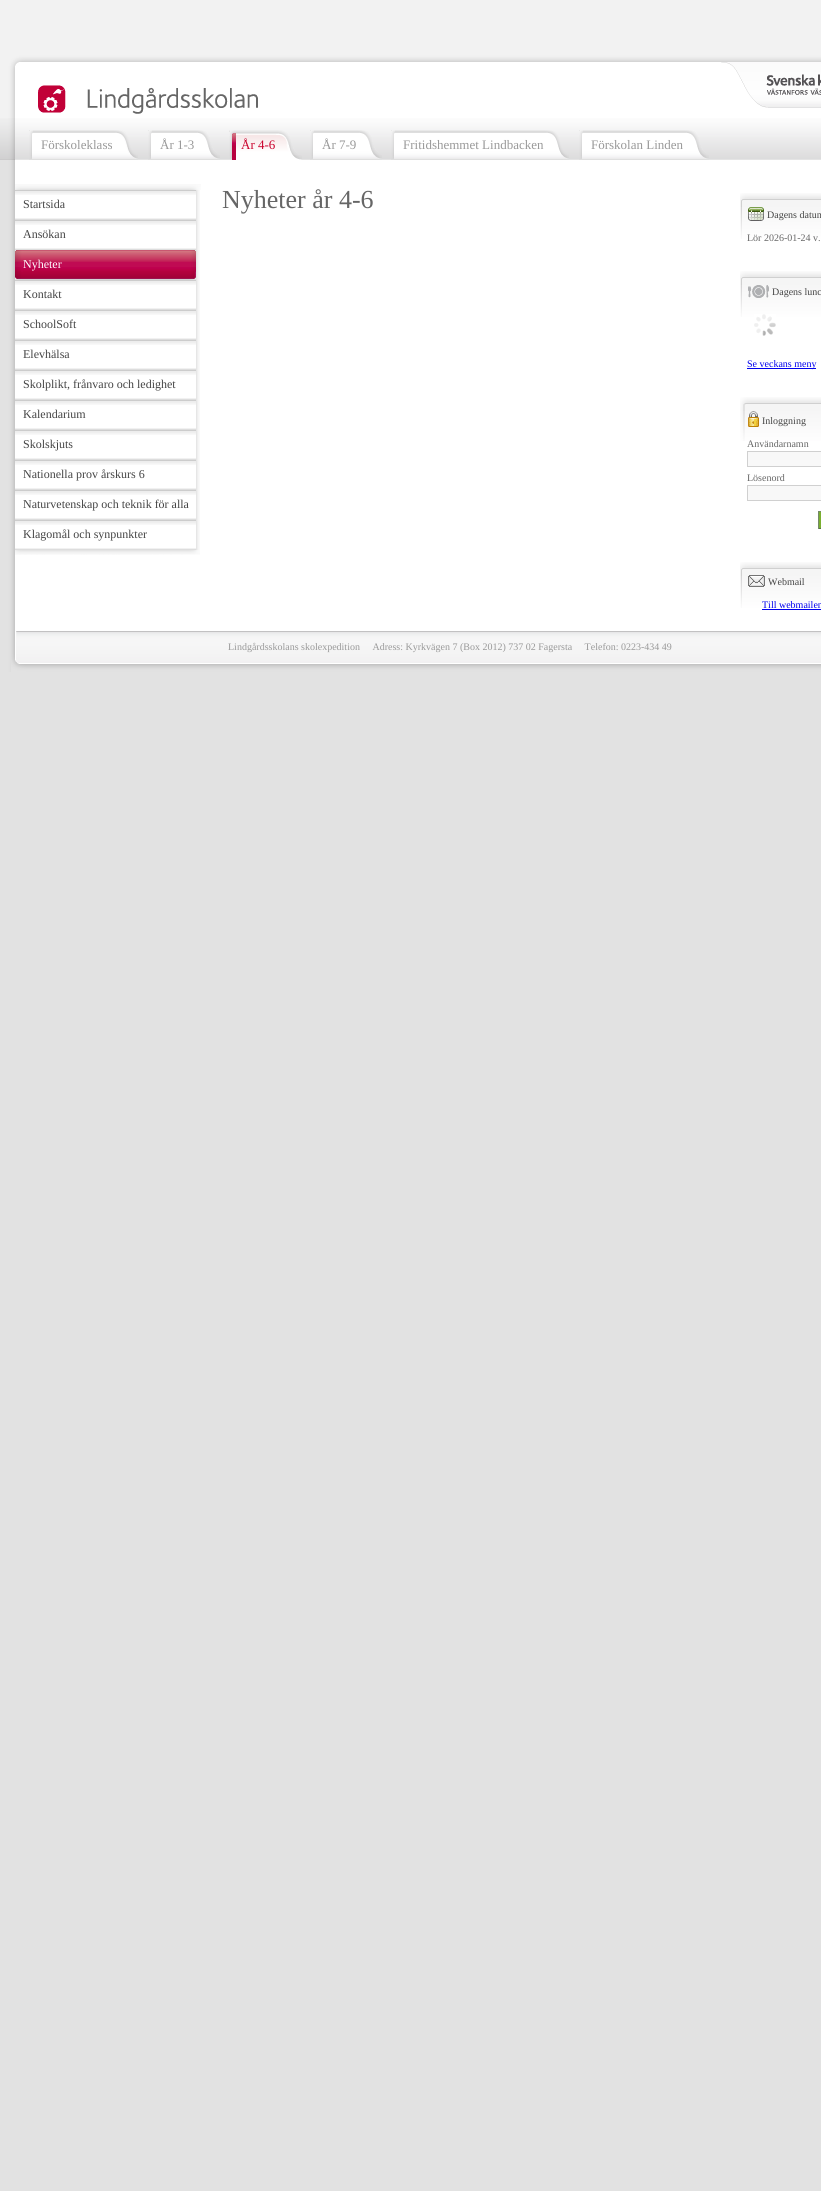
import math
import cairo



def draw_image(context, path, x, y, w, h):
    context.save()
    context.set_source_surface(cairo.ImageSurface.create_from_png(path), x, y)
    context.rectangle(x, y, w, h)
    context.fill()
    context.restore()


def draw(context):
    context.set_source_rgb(226 / 255, 226 / 255, 226 / 255)
    context.paint()
    draw_image(context, "images/1.png", 0, 0, 821, 160)
    draw_image(context, "images/2.png", 8, 160, 813, 512)
    draw_image(context, "images/3.png", 8, 55, 813, 105)
    draw_image(context, "images/4.png", 38, 85, 220, 29)
    draw_image(context, "images/5.png", 721, 62, 100, 46)
    draw_image(context, "images/6.png", 29, 130, 109, 30)
    draw_image(context, "images/7.png", 29, 130, 4, 29)
    draw_image(context, "images/8.png", 148, 130, 72, 30)
    draw_image(context, "images/7.png", 148, 130, 4, 29)
    draw_image(context, "images/9.png", 229, 130, 73, 30)
    draw_image(context, "images/10.png", 229, 130, 7, 30)
    draw_image(context, "images/8.png", 310, 130, 72, 30)
    draw_image(context, "images/7.png", 310, 130, 4, 29)
    draw_image(context, "images/11.png", 391, 130, 178, 30)
    draw_image(context, "images/7.png", 391, 130, 4, 29)
    draw_image(context, "images/12.png", 579, 130, 130, 30)
    draw_image(context, "images/7.png", 579, 130, 4, 29)
    draw_image(context, "images/13.png", 15, 184, 186, 6)
    draw_image(context, "images/14.png", 196, 190, 4, 360)
    draw_image(context, "images/15.png", 15, 218, 181, 1)
    draw_image(context, "images/16.png", 15, 191, 181, 4)
    context.set_source_rgb(204 / 255, 204 / 255, 204 / 255)
    context.rectangle(15, 190, 181, 1)
    context.fill()
    context.set_source_rgb(221 / 255, 221 / 255, 221 / 255)
    context.rectangle(15, 219, 181, 1)
    context.fill()
    draw_image(context, "images/15.png", 15, 248, 181, 1)
    draw_image(context, "images/16.png", 15, 221, 181, 4)
    context.set_source_rgb(204 / 255, 204 / 255, 204 / 255)
    context.rectangle(15, 220, 181, 1)
    context.fill()
    context.set_source_rgb(221 / 255, 221 / 255, 221 / 255)
    context.rectangle(15, 249, 181, 1)
    context.fill()
    draw_image(context, "images/17.png", 15, 262, 181, 18)
    draw_image(context, "images/18.png", 15, 250, 181, 12)
    draw_image(context, "images/15.png", 15, 308, 181, 1)
    draw_image(context, "images/16.png", 15, 281, 181, 4)
    context.set_source_rgb(204 / 255, 204 / 255, 204 / 255)
    context.rectangle(15, 280, 181, 1)
    context.fill()
    context.set_source_rgb(221 / 255, 221 / 255, 221 / 255)
    context.rectangle(15, 309, 181, 1)
    context.fill()
    draw_image(context, "images/15.png", 15, 338, 181, 1)
    draw_image(context, "images/16.png", 15, 311, 181, 4)
    context.set_source_rgb(204 / 255, 204 / 255, 204 / 255)
    context.rectangle(15, 310, 181, 1)
    context.fill()
    context.set_source_rgb(221 / 255, 221 / 255, 221 / 255)
    context.rectangle(15, 339, 181, 1)
    context.fill()
    draw_image(context, "images/15.png", 15, 368, 181, 1)
    draw_image(context, "images/16.png", 15, 341, 181, 4)
    context.set_source_rgb(204 / 255, 204 / 255, 204 / 255)
    context.rectangle(15, 340, 181, 1)
    context.fill()
    context.set_source_rgb(221 / 255, 221 / 255, 221 / 255)
    context.rectangle(15, 369, 181, 1)
    context.fill()
    draw_image(context, "images/15.png", 15, 398, 181, 1)
    draw_image(context, "images/16.png", 15, 371, 181, 4)
    context.set_source_rgb(204 / 255, 204 / 255, 204 / 255)
    context.rectangle(15, 370, 181, 1)
    context.fill()
    context.set_source_rgb(221 / 255, 221 / 255, 221 / 255)
    context.rectangle(15, 399, 181, 1)
    context.fill()
    draw_image(context, "images/15.png", 15, 428, 181, 1)
    draw_image(context, "images/16.png", 15, 401, 181, 4)
    context.set_source_rgb(204 / 255, 204 / 255, 204 / 255)
    context.rectangle(15, 400, 181, 1)
    context.fill()
    context.set_source_rgb(221 / 255, 221 / 255, 221 / 255)
    context.rectangle(15, 429, 181, 1)
    context.fill()
    draw_image(context, "images/15.png", 15, 458, 181, 1)
    draw_image(context, "images/16.png", 15, 431, 181, 4)
    context.set_source_rgb(204 / 255, 204 / 255, 204 / 255)
    context.rectangle(15, 430, 181, 1)
    context.fill()
    context.set_source_rgb(221 / 255, 221 / 255, 221 / 255)
    context.rectangle(15, 459, 181, 1)
    context.fill()
    draw_image(context, "images/15.png", 15, 488, 181, 1)
    draw_image(context, "images/16.png", 15, 461, 181, 4)
    context.set_source_rgb(204 / 255, 204 / 255, 204 / 255)
    context.rectangle(15, 460, 181, 1)
    context.fill()
    context.set_source_rgb(221 / 255, 221 / 255, 221 / 255)
    context.rectangle(15, 489, 181, 1)
    context.fill()
    draw_image(context, "images/15.png", 15, 518, 181, 1)
    draw_image(context, "images/16.png", 15, 491, 181, 4)
    context.set_source_rgb(204 / 255, 204 / 255, 204 / 255)
    context.rectangle(15, 490, 181, 1)
    context.fill()
    context.set_source_rgb(221 / 255, 221 / 255, 221 / 255)
    context.rectangle(15, 519, 181, 1)
    context.fill()
    draw_image(context, "images/15.png", 15, 548, 181, 1)
    draw_image(context, "images/16.png", 15, 521, 181, 4)
    context.set_source_rgb(204 / 255, 204 / 255, 204 / 255)
    context.rectangle(15, 520, 181, 1)
    context.fill()
    context.set_source_rgb(221 / 255, 221 / 255, 221 / 255)
    context.rectangle(15, 549, 181, 1)
    context.fill()
    draw_image(context, "images/19.png", 15, 550, 185, 5)
    draw_image(context, "images/20.png", 740, 193, 81, 46)
    draw_image(context, "images/21.png", 748, 207, 16, 14)
    draw_image(context, "images/20.png", 740, 271, 81, 46)
    draw_image(context, "images/22.png", 748, 285, 21, 13)
    draw_image(context, "images/23.png", 754, 314, 22, 22)
    context.set_source_rgb(0, 0, 238 / 255)
    context.rectangle(747, 368, 69, 1)
    context.fill()
    draw_image(context, "images/24.png", 740, 397, 81, 44)
    draw_image(context, "images/25.png", 748, 411, 11, 16)
    context.set_source_rgb(248 / 255, 248 / 255, 248 / 255)
    context.rectangle(747.5, 451.5, 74, 15)
    context.fill_preserve()
    context.set_source_rgb(208 / 255, 208 / 255, 208 / 255)
    context.set_line_width(1)
    context.stroke()
    context.set_source_rgb(248 / 255, 248 / 255, 248 / 255)
    context.rectangle(747.5, 485.5, 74, 15)
    context.fill_preserve()
    context.set_source_rgb(208 / 255, 208 / 255, 208 / 255)
    context.stroke()
    context.set_source_rgb(122 / 255, 175 / 255, 47 / 255)
    context.rectangle(819, 511, 2, 18)
    context.fill()
    context.set_source_rgb(116 / 255, 136 / 255, 105 / 255)
    context.rectangle(818, 511, 3, 1)
    context.fill()
    context.set_source_rgb(86 / 255, 116 / 255, 69 / 255)
    context.rectangle(818, 528, 3, 1)
    context.fill()
    context.set_source_rgb(116 / 255, 136 / 255, 105 / 255)
    context.rectangle(818, 511, 1, 18)
    context.fill()
    draw_image(context, "images/20.png", 740, 562, 81, 46)
    draw_image(context, "images/26.png", 748, 575, 17, 12)
    context.set_source_rgb(0, 0, 238 / 255)
    context.rectangle(762, 609, 59, 1)
    context.fill()
    draw_image(context, "images/27.png", 11, 631, 810, 41)
    context.select_font_face("Liberation Serif")
    context.set_font_size(13)
    context.set_source_rgb(153 / 255, 153 / 255, 153 / 255)
    context.move_to(41, 149)
    context.show_text("Förskoleklass")
    context.move_to(160, 149)
    context.show_text("År 1-3")
    context.set_source_rgb(202 / 255, 3 / 255, 45 / 255)
    context.move_to(241, 149)
    context.show_text("År 4-6")
    context.set_source_rgb(153 / 255, 153 / 255, 153 / 255)
    context.move_to(322, 149)
    context.show_text("År 7-9")
    context.move_to(403, 149)
    context.show_text("Fritidshemmet Lindbacken")
    context.move_to(591, 149)
    context.show_text("Förskolan Linden")
    context.set_font_size(12)
    context.set_source_rgb(68 / 255, 68 / 255, 68 / 255)
    context.move_to(23, 208)
    context.show_text("Startsida")
    context.move_to(23, 238)
    context.show_text("Ansökan")
    context.set_source_rgb(1, 1, 1)
    context.move_to(23, 268)
    context.show_text("Nyheter")
    context.set_source_rgb(68 / 255, 68 / 255, 68 / 255)
    context.move_to(23, 298)
    context.show_text("Kontakt")
    context.move_to(23, 328)
    context.show_text("SchoolSoft")
    context.move_to(23, 358)
    context.show_text("Elevhälsa")
    context.move_to(23, 388)
    context.show_text("Skolplikt, frånvaro och ledighet")
    context.move_to(23, 418)
    context.show_text("Kalendarium")
    context.move_to(23, 448)
    context.show_text("Skolskjuts")
    context.move_to(23, 478)
    context.show_text("Nationella prov årskurs 6")
    context.move_to(23, 508)
    context.show_text("Naturvetenskap och teknik för alla")
    context.move_to(23, 538)
    context.show_text("Klagomål och synpunkter")
    context.set_font_size(26)
    context.set_source_rgb(102 / 255, 102 / 255, 102 / 255)
    context.move_to(222, 208)
    context.show_text("Nyheter år 4-6")
    context.set_font_size(10)
    context.set_source_rgb(68 / 255, 68 / 255, 68 / 255)
    context.move_to(767, 218)
    context.show_text("Dagens datum")
    context.set_source_rgb(102 / 255, 102 / 255, 102 / 255)
    context.move_to(747, 241)
    context.show_text("Lör 2026-01-24 v.")
    context.set_source_rgb(68 / 255, 68 / 255, 68 / 255)
    context.move_to(772, 295)
    context.show_text("Dagens lunc")
    context.set_source_rgb(0, 0, 238 / 255)
    context.move_to(747, 367)
    context.show_text("Se veckans meny")
    context.set_source_rgb(68 / 255, 68 / 255, 68 / 255)
    context.move_to(762, 424)
    context.show_text("Inloggning")
    context.set_source_rgb(102 / 255, 102 / 255, 102 / 255)
    context.move_to(747, 447)
    context.show_text("Användarnamn")
    context.move_to(747, 481)
    context.show_text("Lösenord")
    context.set_source_rgb(68 / 255, 68 / 255, 68 / 255)
    context.move_to(768, 585)
    context.show_text("Webmail")
    context.set_source_rgb(0, 0, 238 / 255)
    context.move_to(762, 608)
    context.show_text("Till webmailen")
    context.set_source_rgb(153 / 255, 153 / 255, 153 / 255)
    context.move_to(228, 650)
    context.show_text("Lindgårdsskolans skolexpedition     Adress: Kyrkvägen 7 (Box 2012) 737 02 Fagersta     Telefon: 0223-434 49")


surface = cairo.ImageSurface(cairo.Format.RGB24, 821, 2191)
context = cairo.Context(surface)
options = cairo.FontOptions()
options.set_hint_metrics(cairo.HintMetrics.OFF)
options.set_hint_style(cairo.HintStyle.NONE)
context.set_font_options(options)
context.set_miter_limit(4)
draw(context)
surface.write_to_png("out.png")
